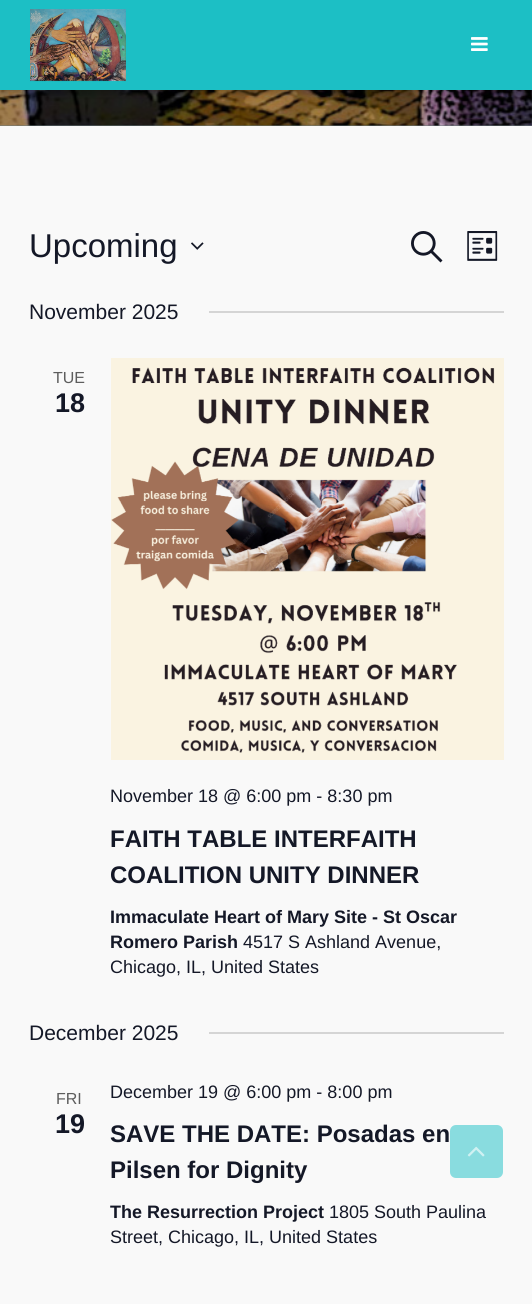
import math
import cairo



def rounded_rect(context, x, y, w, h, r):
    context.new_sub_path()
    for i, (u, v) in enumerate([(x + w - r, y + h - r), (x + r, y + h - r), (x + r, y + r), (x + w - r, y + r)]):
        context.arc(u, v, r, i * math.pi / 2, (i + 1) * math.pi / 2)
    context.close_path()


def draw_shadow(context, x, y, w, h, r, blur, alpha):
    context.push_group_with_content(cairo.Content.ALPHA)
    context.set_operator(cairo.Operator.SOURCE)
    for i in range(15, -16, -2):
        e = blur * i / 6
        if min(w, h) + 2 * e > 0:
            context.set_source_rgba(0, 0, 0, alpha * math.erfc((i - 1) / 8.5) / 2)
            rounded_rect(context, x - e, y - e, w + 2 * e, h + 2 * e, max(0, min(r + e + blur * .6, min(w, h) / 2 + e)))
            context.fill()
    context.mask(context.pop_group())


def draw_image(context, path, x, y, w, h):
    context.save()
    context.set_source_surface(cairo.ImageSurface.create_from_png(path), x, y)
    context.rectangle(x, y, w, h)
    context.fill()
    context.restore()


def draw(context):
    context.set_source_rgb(249 / 255, 249 / 255, 249 / 255)
    context.paint()
    context.set_source_rgb(106 / 255, 122 / 255, 124 / 255)
    context.rectangle(0, 90, 532, 36)
    context.fill()
    draw_image(context, "images/3.png", 0, 90, 532, 36)
    context.set_source_rgb(0, 0, 0)
    draw_shadow(context, 0, 3, 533, 90, 0, 4, 0.26)
    context.set_source_rgb(28 / 255, 191 / 255, 197 / 255)
    context.rectangle(0, 0, 532, 90)
    context.fill()
    draw_image(context, "images/1.png", 30, 9, 96, 73)
    draw_image(context, "images/2.png", 471, 37, 17, 14)
    draw_image(context, "images/4.png", 191, 242, 13, 8)
    draw_image(context, "images/5.png", 411, 231, 32, 32)
    draw_image(context, "images/6.png", 467, 231, 31, 30)
    context.set_source_rgb(213 / 255, 213 / 255, 213 / 255)
    context.rectangle(209, 311, 295, 2)
    context.fill()
    draw_image(context, "images/7.png", 111, 358, 393, 402)
    context.rectangle(209, 1032, 295, 2)
    context.fill()
    context.set_source_rgb(137 / 255, 220 / 255, 223 / 255)
    rounded_rect(context, 450, 1125, 53, 53, 6)
    context.fill()
    draw_image(context, "images/8.png", 467, 1146, 18, 11)
    context.select_font_face("Liberation Sans")
    context.set_font_size(33)
    context.set_source_rgb(20 / 255, 24 / 255, 39 / 255)
    context.move_to(29, 257)
    context.show_text("Upcoming")
    context.set_font_size(21)
    context.move_to(29, 319)
    context.show_text("November 2025")
    context.set_font_size(16)
    context.set_source_rgb(93 / 255, 93 / 255, 93 / 255)
    context.move_to(53, 383)
    context.show_text("TUE")
    context.select_font_face("Liberation Sans", cairo.FontSlant.NORMAL, cairo.FontWeight.BOLD)
    context.set_font_size(27)
    context.set_source_rgb(20 / 255, 24 / 255, 39 / 255)
    context.move_to(55, 412)
    context.show_text("18")
    context.select_font_face("Liberation Sans")
    context.set_font_size(18)
    context.move_to(110, 802)
    context.show_text("November 18 @ 6:00 pm - 8:30 pm")
    context.select_font_face("Liberation Sans", cairo.FontSlant.NORMAL, cairo.FontWeight.BOLD)
    context.set_font_size(24)
    context.move_to(110, 847)
    context.show_text("FAITH TABLE INTERFAITH")
    context.move_to(110, 883)
    context.show_text("COALITION UNITY DINNER")
    context.set_font_size(18)
    context.move_to(110, 923)
    context.show_text("Immaculate Heart of Mary Site - St Oscar")
    context.move_to(110, 948)
    context.show_text("Romero Parish")
    context.select_font_face("Liberation Sans")
    context.move_to(243, 948)
    context.show_text("4517 S Ashland Avenue,")
    context.move_to(110, 973)
    context.show_text("Chicago, IL, United States")
    context.set_font_size(21)
    context.move_to(29, 1040)
    context.show_text("December 2025")
    context.set_font_size(16)
    context.set_source_rgb(93 / 255, 93 / 255, 93 / 255)
    context.move_to(56, 1104)
    context.show_text("FRI")
    context.select_font_face("Liberation Sans", cairo.FontSlant.NORMAL, cairo.FontWeight.BOLD)
    context.set_font_size(27)
    context.set_source_rgb(20 / 255, 24 / 255, 39 / 255)
    context.move_to(55, 1133)
    context.show_text("19")
    context.select_font_face("Liberation Sans")
    context.set_font_size(18)
    context.move_to(110, 1098)
    context.show_text("December 19 @ 6:00 pm - 8:00 pm")
    context.select_font_face("Liberation Sans", cairo.FontSlant.NORMAL, cairo.FontWeight.BOLD)
    context.set_font_size(24)
    context.move_to(110, 1142)
    context.show_text("SAVE THE DATE: Posadas en")
    context.move_to(110, 1178)
    context.show_text("Pilsen for Dignity")
    context.set_font_size(18)
    context.move_to(110, 1218)
    context.show_text("The Resurrection Project")
    context.select_font_face("Liberation Sans")
    context.move_to(329, 1218)
    context.show_text("1805 South Paulina")
    context.move_to(110, 1243)
    context.show_text("Street, Chicago, IL, United States")


surface = cairo.ImageSurface(cairo.Format.RGB24, 532, 1304)
context = cairo.Context(surface)
options = cairo.FontOptions()
options.set_hint_metrics(cairo.HintMetrics.OFF)
options.set_hint_style(cairo.HintStyle.NONE)
context.set_font_options(options)
context.set_miter_limit(4)
draw(context)
surface.write_to_png("out.png")
